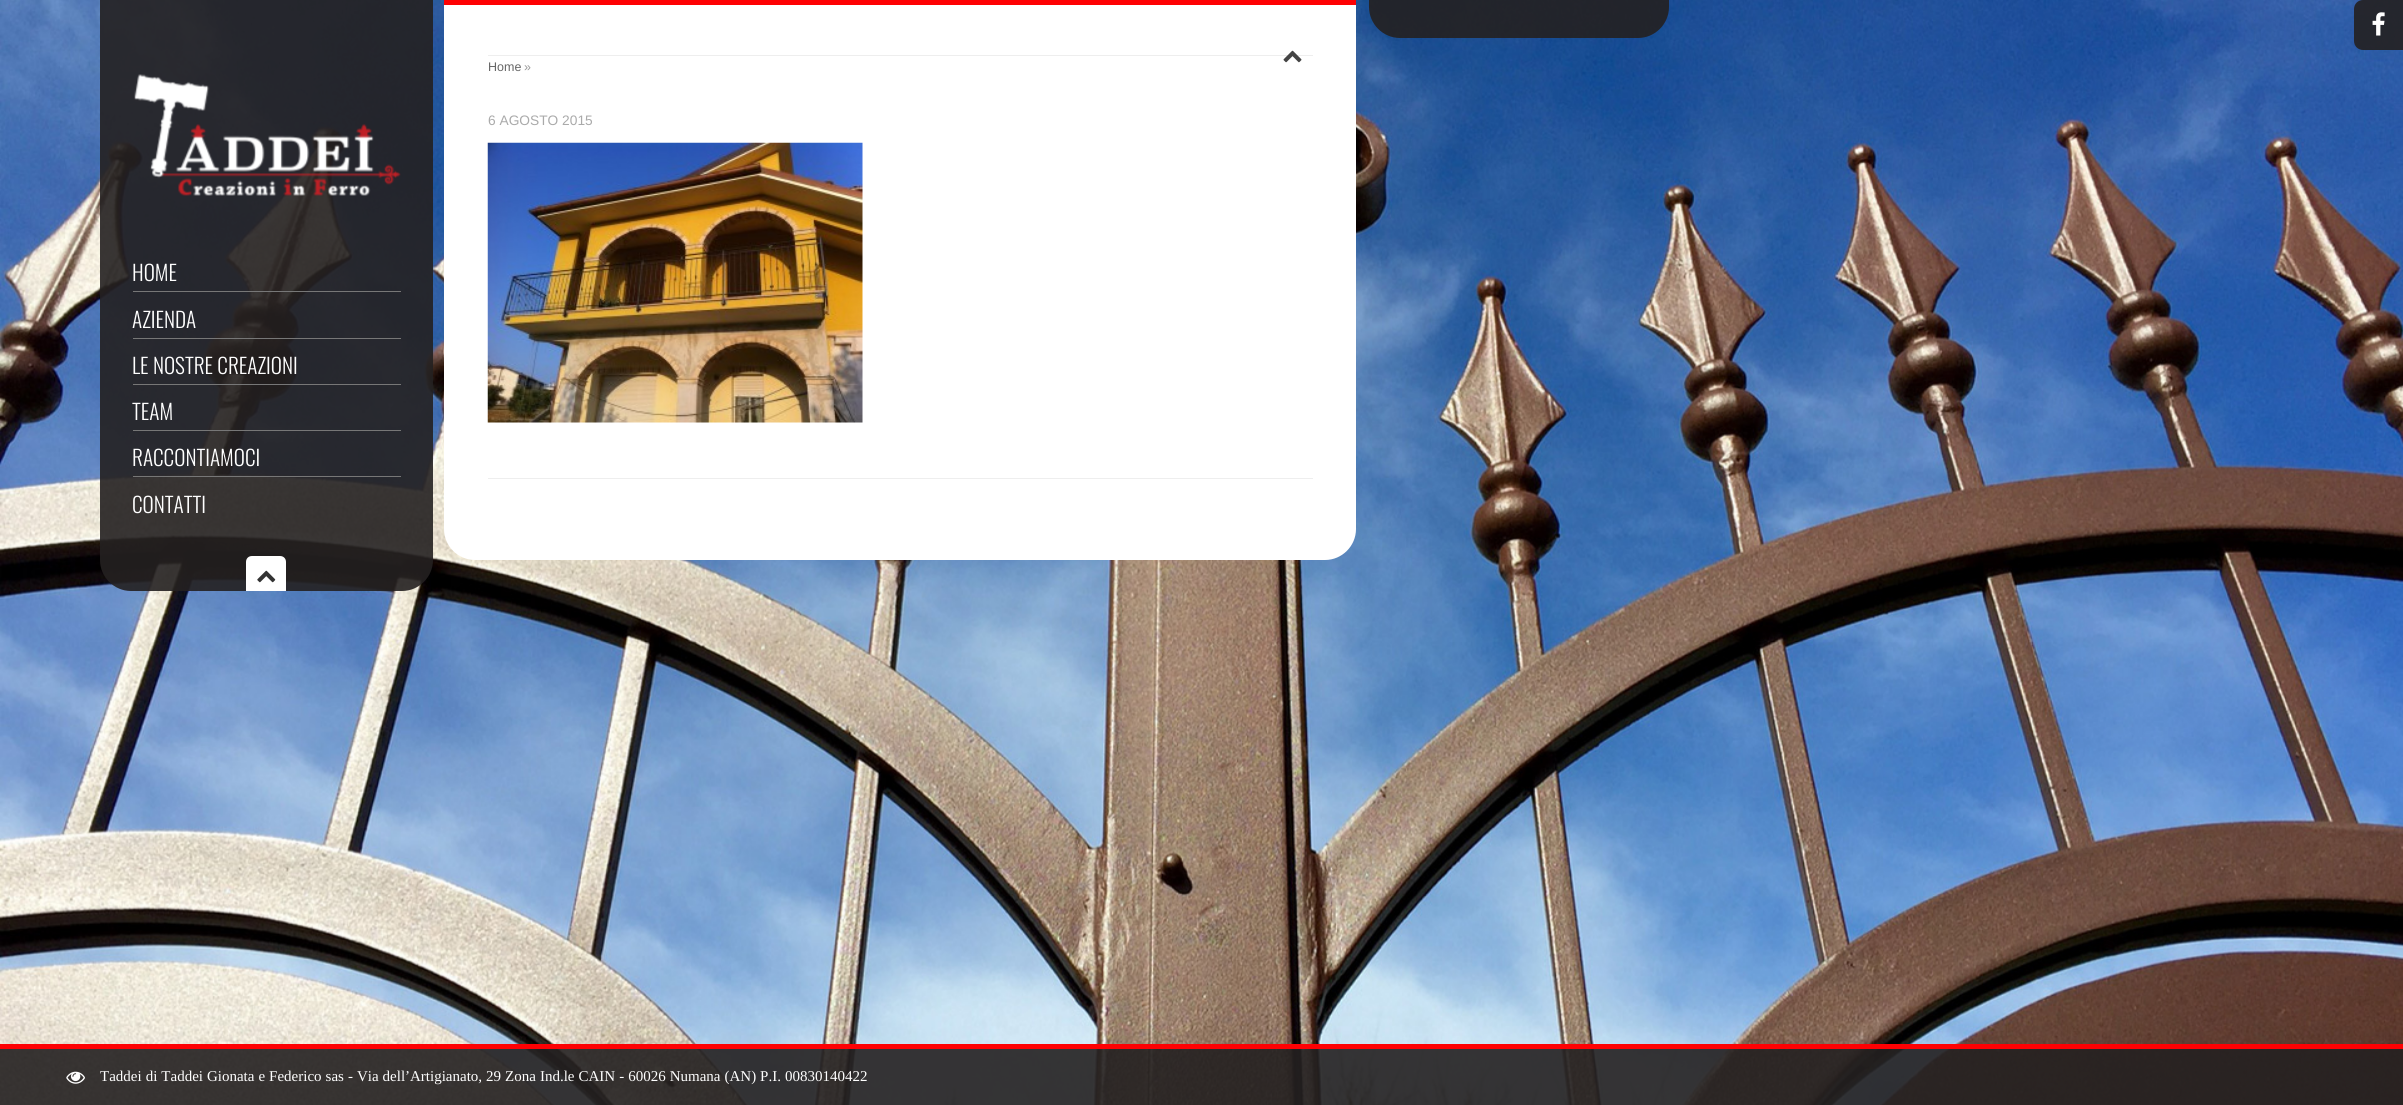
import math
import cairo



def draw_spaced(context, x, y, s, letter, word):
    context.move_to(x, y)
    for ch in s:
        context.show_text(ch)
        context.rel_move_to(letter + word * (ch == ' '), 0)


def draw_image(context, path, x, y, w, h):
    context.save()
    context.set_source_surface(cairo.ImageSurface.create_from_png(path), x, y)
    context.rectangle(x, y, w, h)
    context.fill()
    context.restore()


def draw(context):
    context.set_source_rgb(1, 1, 1)
    context.paint()
    draw_image(context, "images/1.png", 0, 0, 2403, 1105)
    context.set_source_rgba(36 / 255, 33 / 255, 33 / 255, 0.9)
    context.new_path()
    context.move_to(2363, 0)
    context.line_to(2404, 0)
    context.line_to(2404, 50)
    context.line_to(2363, 50)
    context.curve_to(2358, 50, 2354, 46, 2354, 41)
    context.line_to(2354, 9)
    context.curve_to(2354, 4, 2358, 0, 2363, 0)
    context.close_path()
    context.fill()
    draw_image(context, "images/2.png", 2372, 12, 13, 24)
    context.new_path()
    context.move_to(1369, 0)
    context.line_to(1669, 0)
    context.line_to(1669, 7)
    context.curve_to(1669, 24, 1655, 38, 1638, 38)
    context.line_to(1400, 38)
    context.curve_to(1383, 38, 1369, 24, 1369, 7)
    context.close_path()
    context.fill()
    context.set_source_rgb(1, 1, 1)
    context.new_path()
    context.move_to(444, 0)
    context.line_to(1356, 0)
    context.line_to(1356, 529)
    context.curve_to(1356, 546, 1342, 560, 1325, 560)
    context.line_to(475, 560)
    context.curve_to(458, 560, 444, 546, 444, 529)
    context.close_path()
    context.fill()
    context.set_source_rgb(254 / 255, 1 / 255, 3 / 255)
    context.rectangle(444, 0, 912, 5)
    context.fill()
    context.set_source_rgb(238 / 255, 238 / 255, 238 / 255)
    context.rectangle(488, 55, 825, 1)
    context.fill()
    draw_image(context, "images/3.png", 1283, 50, 19, 13)
    context.rectangle(488, 478, 825, 1)
    context.fill()
    draw_image(context, "images/4.png", 487, 142, 376, 281)
    context.set_source_rgba(36 / 255, 33 / 255, 33 / 255, 0.9)
    context.new_path()
    context.move_to(100, 0)
    context.line_to(433, 0)
    context.line_to(433, 560)
    context.curve_to(433, 577, 419, 591, 402, 591)
    context.line_to(131, 591)
    context.curve_to(114, 591, 100, 577, 100, 560)
    context.close_path()
    context.fill()
    draw_image(context, "images/5.png", 134, 74, 267, 122)
    context.set_source_rgb(119 / 255, 119 / 255, 119 / 255)
    context.rectangle(133, 291, 268, 1)
    context.fill()
    context.rectangle(133, 338, 268, 1)
    context.fill()
    context.rectangle(133, 384, 268, 1)
    context.fill()
    context.rectangle(133, 430, 268, 1)
    context.fill()
    context.rectangle(133, 476, 268, 1)
    context.fill()
    context.set_source_rgb(1, 1, 1)
    context.new_path()
    context.move_to(252, 556)
    context.line_to(280, 556)
    context.curve_to(283.5, 556, 286, 558.5, 286, 562)
    context.line_to(286, 591)
    context.line_to(246, 591)
    context.line_to(246, 562)
    context.curve_to(246, 558.5, 248.5, 556, 252, 556)
    context.close_path()
    context.fill()
    draw_image(context, "images/6.png", 257, 570, 19, 13)
    context.set_source_rgba(36 / 255, 33 / 255, 33 / 255, 0.9)
    context.rectangle(0, 1049, 2403, 56)
    context.fill()
    context.set_source_rgb(254 / 255, 1 / 255, 3 / 255)
    context.rectangle(0, 1044, 2403, 5)
    context.fill()
    draw_image(context, "images/7.png", 66, 1071, 19, 13)
    context.select_font_face("Liberation Sans")
    context.set_font_size(12.5)
    context.set_source_rgb(102 / 255, 102 / 255, 102 / 255)
    context.move_to(488, 71)
    context.show_text("Home")
    context.set_source_rgb(153 / 255, 153 / 255, 153 / 255)
    context.move_to(524, 71)
    context.show_text("»")
    context.set_font_size(13.75)
    context.set_source_rgb(170 / 255, 170 / 255, 170 / 255)
    context.move_to(488, 125)
    context.show_text("6 AGOSTO 2015")
    context.select_font_face("Oswald Light")
    context.set_font_size(21.25)
    context.set_source_rgb(1, 1, 1)
    context.move_to(132, 281)
    context.show_text("HOME")
    context.move_to(132, 328)
    context.show_text("AZIENDA")
    context.move_to(132, 374)
    context.show_text("LE NOSTRE CREAZIONI")
    context.move_to(132, 420)
    context.show_text("TEAM")
    context.move_to(132, 466)
    context.show_text("RACCONTIAMOCI")
    context.move_to(132, 513)
    context.show_text("CONTATTI")
    context.select_font_face("Liberation Serif")
    context.set_font_size(15)
    draw_spaced(context, 100, 1081, "Taddei di Taddei Gionata e Federico sas - Via dell’Artigianato, 29 Zona Ind.le CAIN - 60026 Numana (AN) P.I. 00830140422", 0, 0.25)


surface = cairo.ImageSurface(cairo.Format.RGB24, 2403, 1105)
context = cairo.Context(surface)
options = cairo.FontOptions()
options.set_hint_metrics(cairo.HintMetrics.OFF)
options.set_hint_style(cairo.HintStyle.NONE)
context.set_font_options(options)
context.set_miter_limit(4)
draw(context)
surface.write_to_png("out.png")
